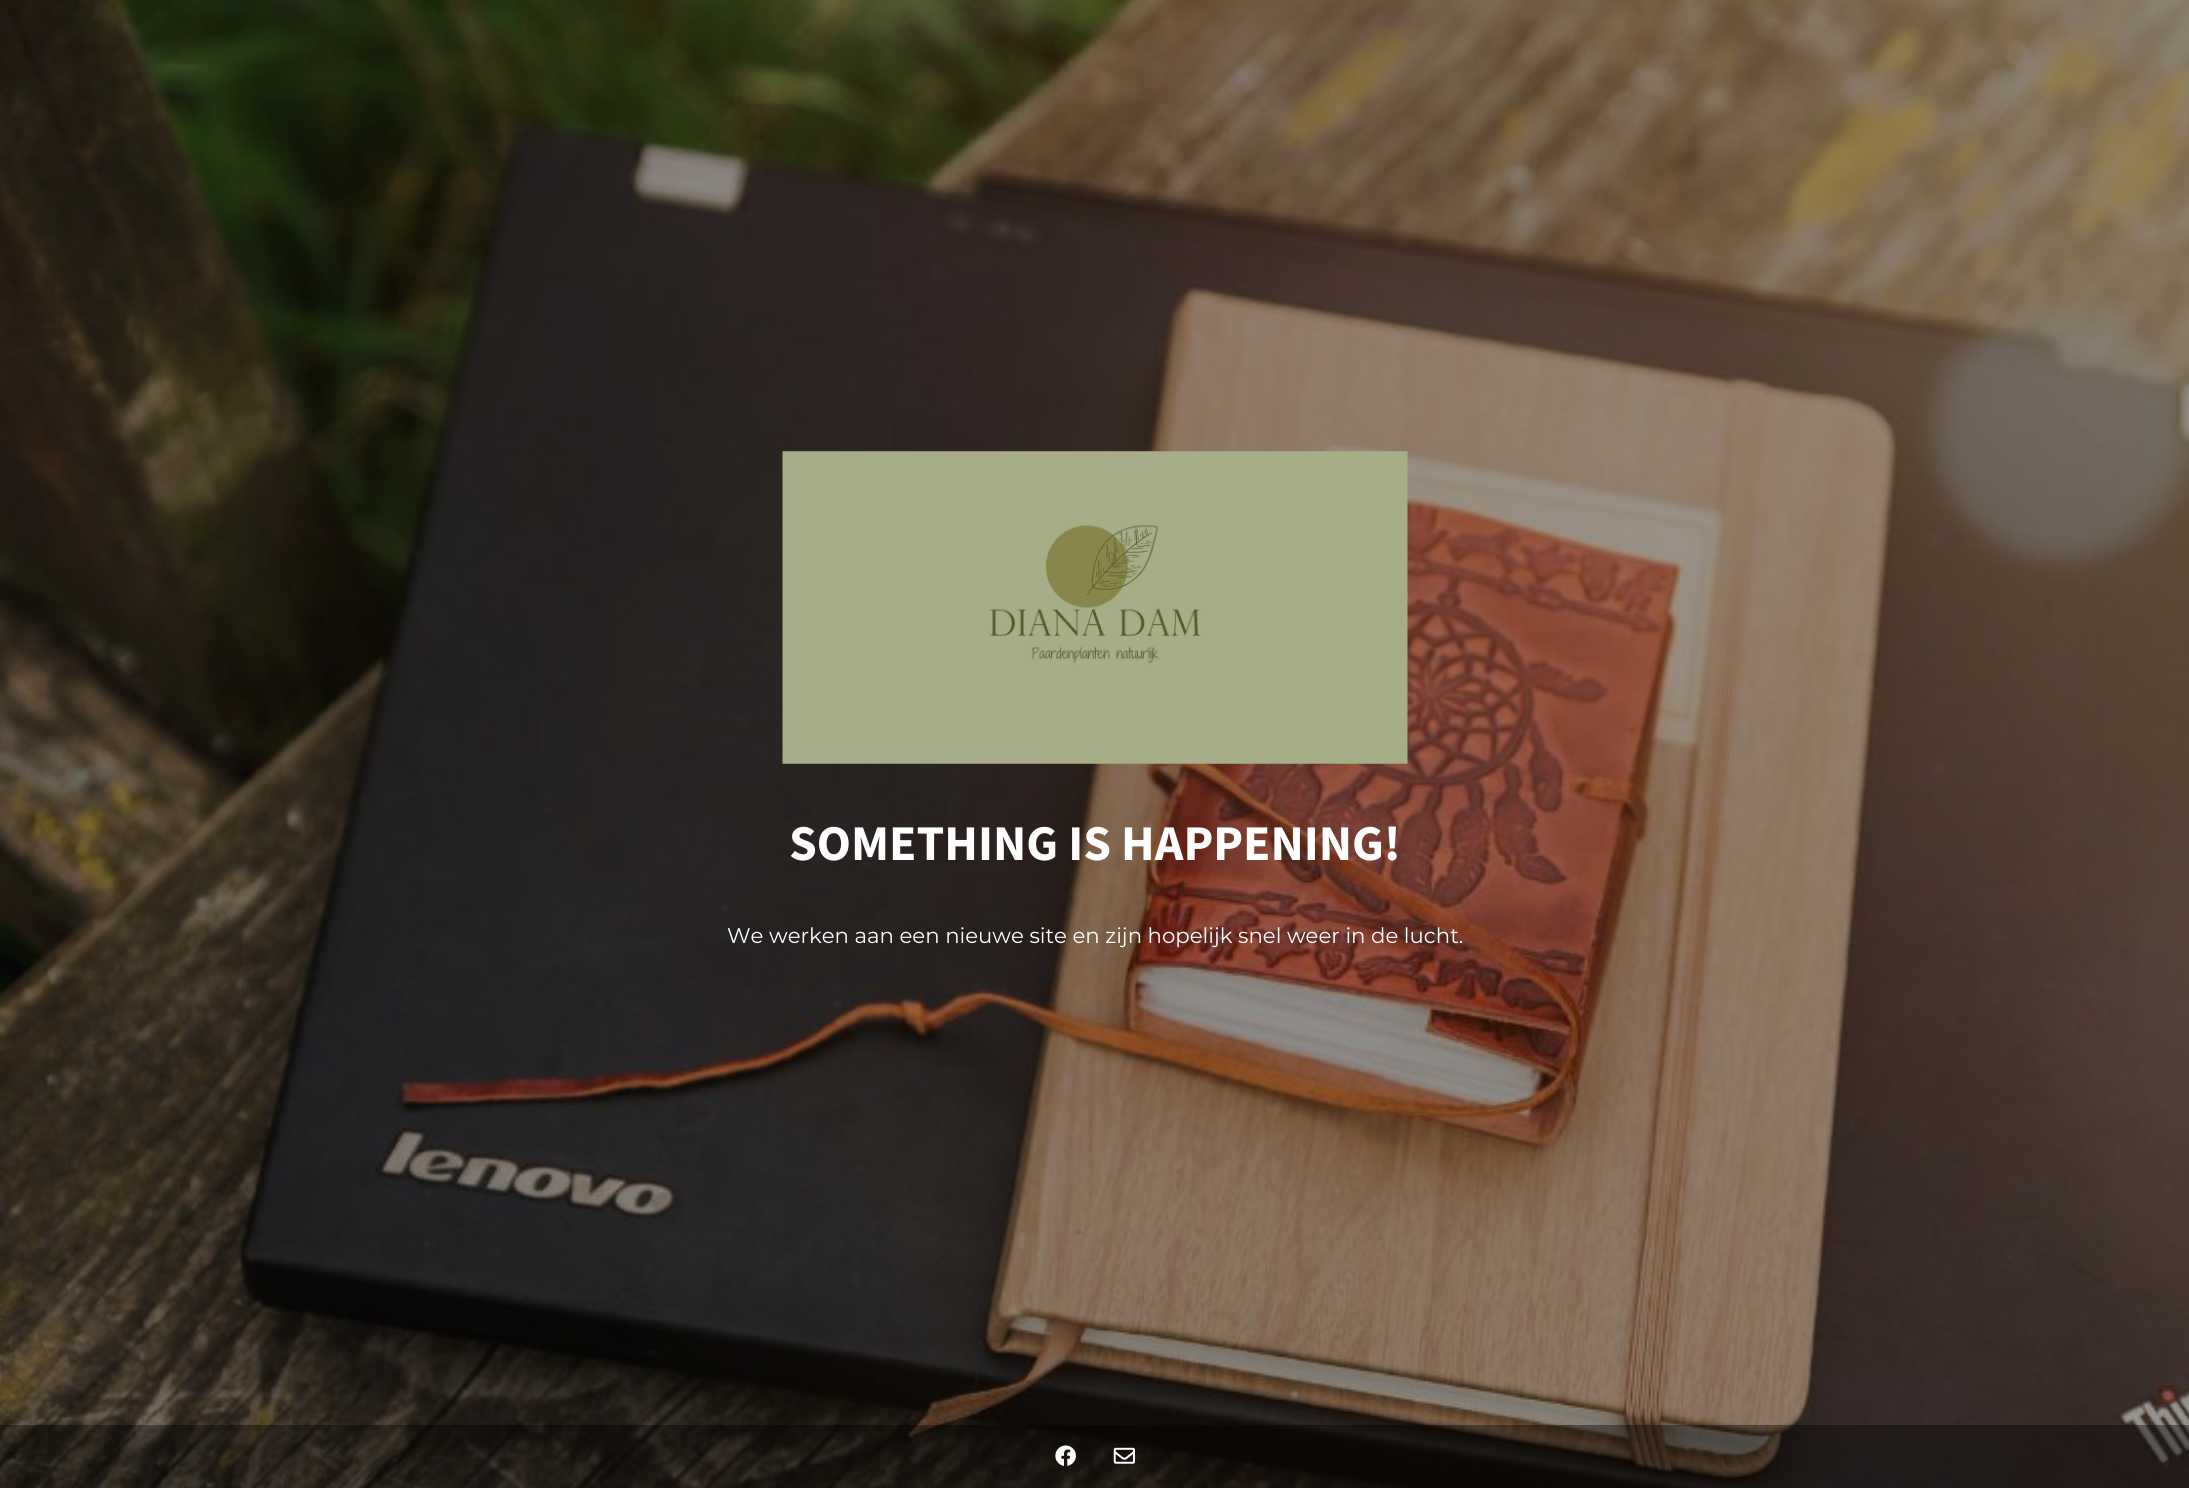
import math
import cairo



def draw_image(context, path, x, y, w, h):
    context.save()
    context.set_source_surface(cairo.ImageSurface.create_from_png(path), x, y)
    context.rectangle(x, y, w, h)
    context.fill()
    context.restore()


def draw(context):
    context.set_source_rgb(1, 1, 1)
    context.paint()
    draw_image(context, "images/1.png", 0, 0, 2189, 1488)
    draw_image(context, "images/2.png", 782, 451, 626, 313)
    context.set_source_rgba(0, 0, 0, 0.4)
    context.rectangle(0, 1425, 2189, 63)
    context.fill()
    draw_image(context, "images/3.png", 1055, 1445, 21, 21)
    draw_image(context, "images/4.png", 1113, 1447, 22, 17)
    context.select_font_face("Source Sans Pro", cairo.FontSlant.NORMAL, cairo.FontWeight.BOLD)
    context.set_font_size(50)
    context.set_source_rgb(1, 1, 1)
    context.move_to(789, 860)
    context.show_text("SOMETHING IS HAPPENING!")
    context.select_font_face("Montserrat")
    context.set_font_size(21.25)
    context.move_to(727, 943)
    context.show_text("We werken aan een nieuwe site en zijn hopelijk snel weer in de lucht.")


surface = cairo.ImageSurface(cairo.Format.RGB24, 2189, 1488)
context = cairo.Context(surface)
options = cairo.FontOptions()
options.set_hint_metrics(cairo.HintMetrics.OFF)
options.set_hint_style(cairo.HintStyle.NONE)
context.set_font_options(options)
context.set_miter_limit(4)
draw(context)
surface.write_to_png("out.png")
